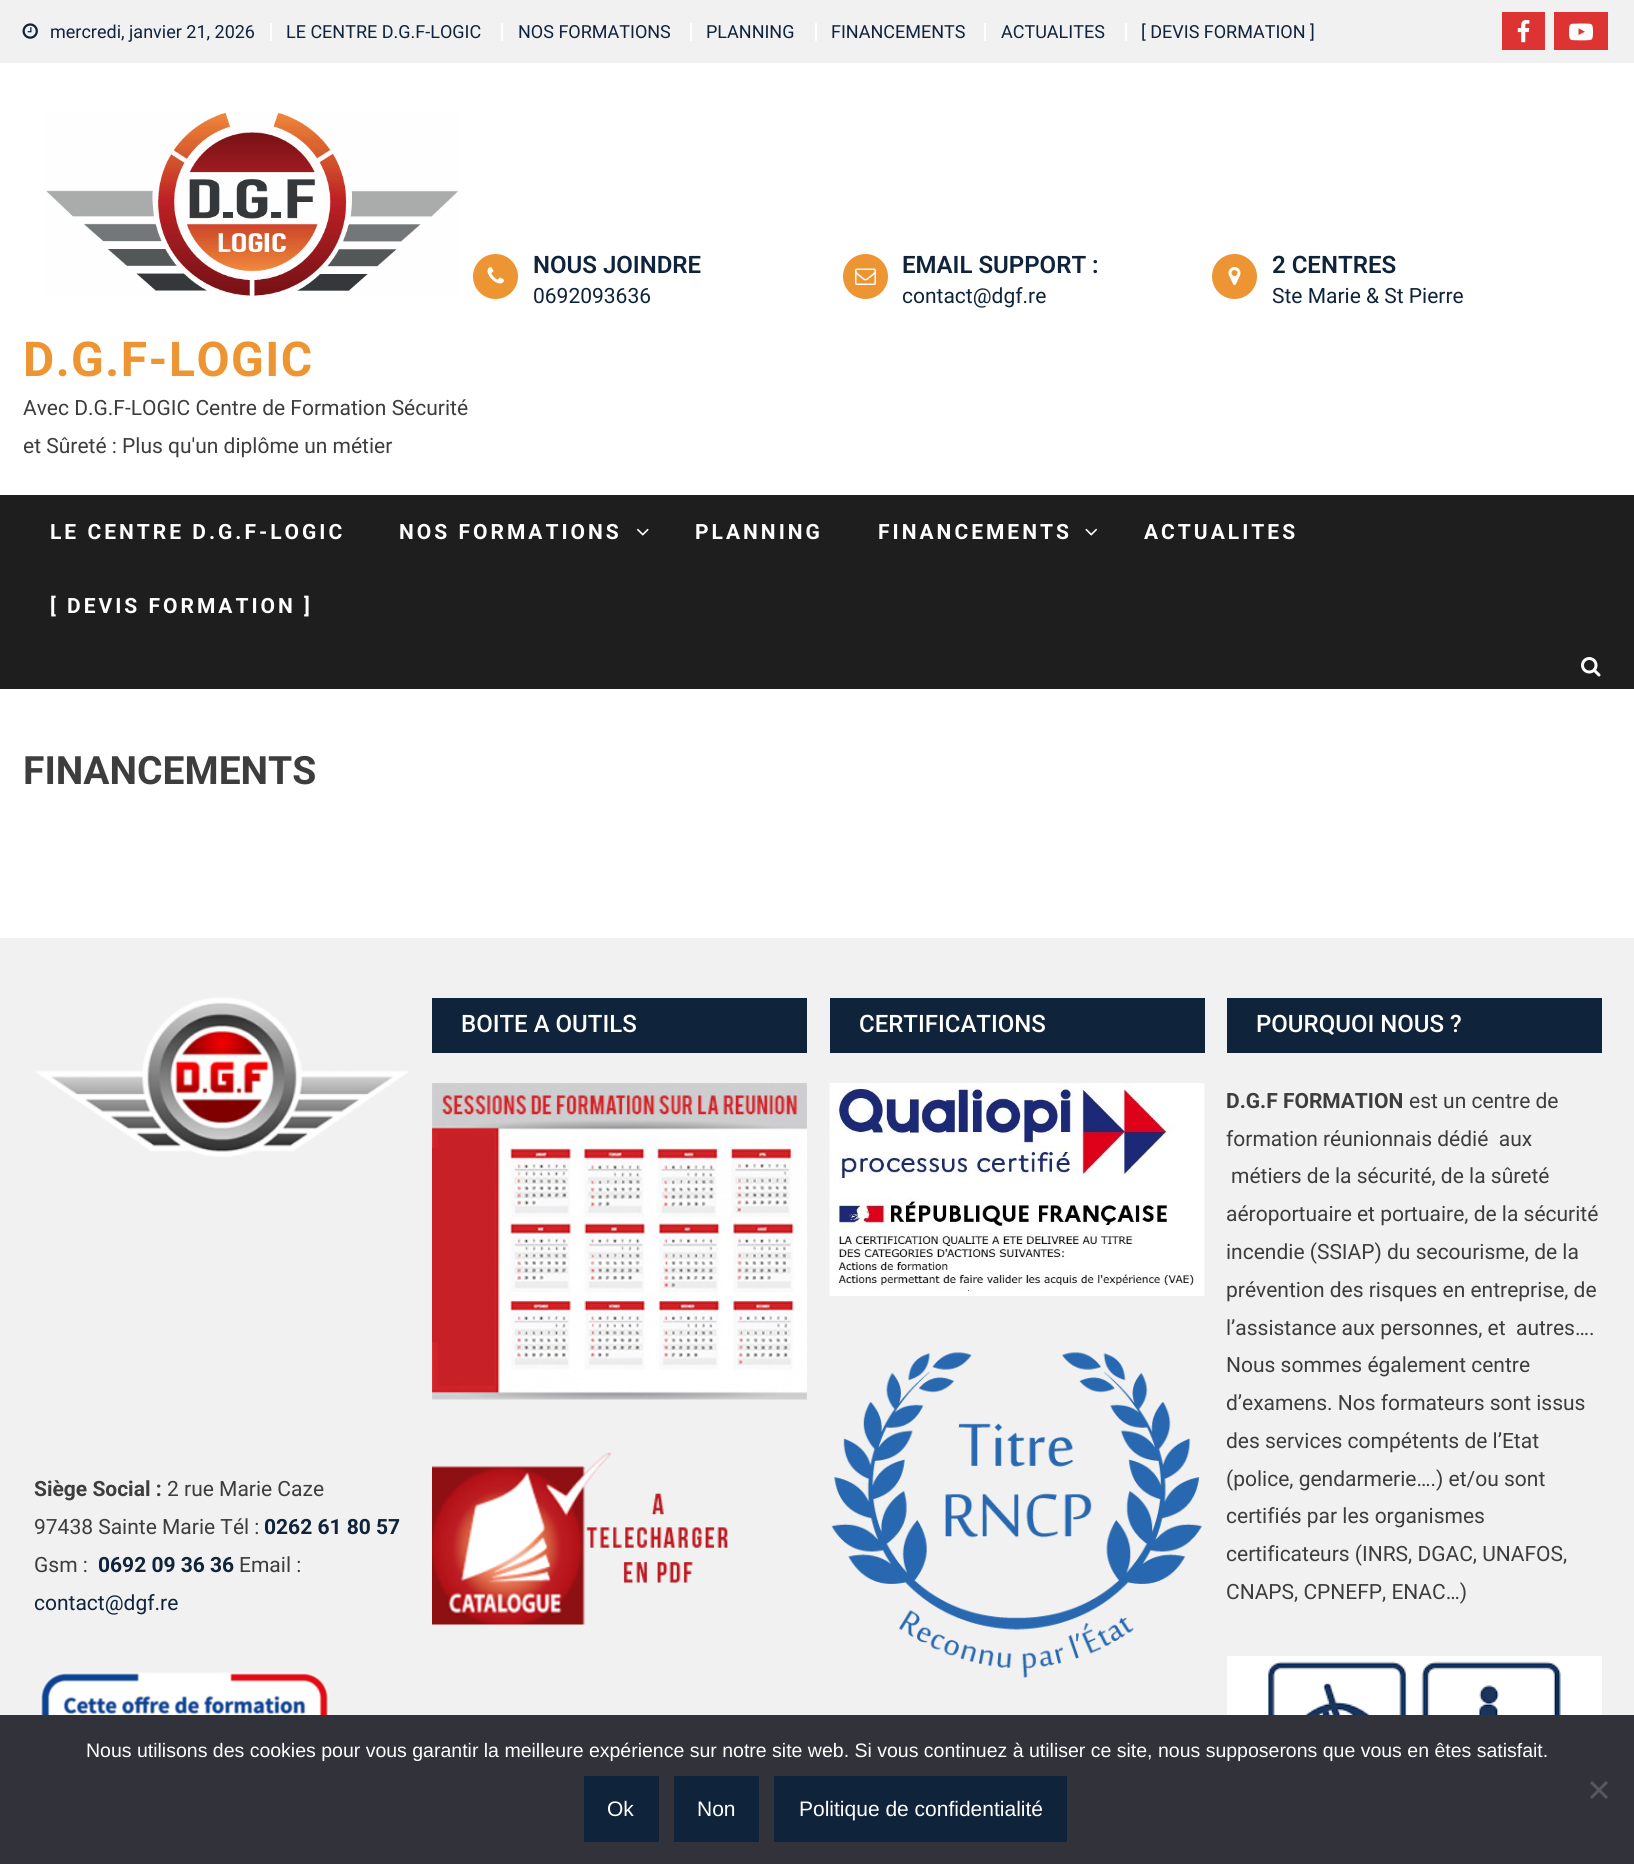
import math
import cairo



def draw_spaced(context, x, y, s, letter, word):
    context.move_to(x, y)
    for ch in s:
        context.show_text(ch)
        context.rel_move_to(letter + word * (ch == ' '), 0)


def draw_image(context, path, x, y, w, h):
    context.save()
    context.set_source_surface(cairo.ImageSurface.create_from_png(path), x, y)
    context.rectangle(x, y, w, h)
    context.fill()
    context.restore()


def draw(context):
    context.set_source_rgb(1, 1, 1)
    context.paint()
    context.set_source_rgb(241 / 255, 241 / 255, 241 / 255)
    context.rectangle(0, 0, 1634, 63)
    context.fill()
    draw_image(context, "images/1.png", 22, 23, 16, 16)
    context.set_source_rgb(1, 1, 1)
    context.rectangle(270, 23, 2, 18)
    context.fill()
    context.rectangle(501, 23, 2, 18)
    context.fill()
    context.rectangle(690, 23, 2, 18)
    context.fill()
    context.rectangle(815, 23, 2, 18)
    context.fill()
    context.rectangle(984, 23, 2, 18)
    context.fill()
    context.rectangle(1125, 23, 2, 18)
    context.fill()
    context.set_source_rgb(221 / 255, 51 / 255, 51 / 255)
    context.rectangle(1502, 12, 43, 38)
    context.fill()
    draw_image(context, "images/2.png", 1517, 19, 13, 24)
    context.rectangle(1554, 12, 54, 38)
    context.fill()
    draw_image(context, "images/3.png", 1569, 23, 24, 18)
    context.set_source_rgb(237 / 255, 149 / 255, 50 / 255)
    context.arc(495.5, 276.5, 22.5, 0, 2 * math.pi)
    context.fill()
    draw_image(context, "images/4.png", 487, 267, 17, 17)
    context.arc(865.5, 276.5, 22.5, 0, 2 * math.pi)
    context.fill()
    draw_image(context, "images/5.png", 855, 268, 21, 17)
    context.arc(1234.5, 276.5, 22.5, 0, 2 * math.pi)
    context.fill()
    draw_image(context, "images/6.png", 1228, 267, 13, 18)
    draw_image(context, "images/7.png", 46, 113, 412, 183)
    context.set_source_rgb(30 / 255, 30 / 255, 30 / 255)
    context.rectangle(0, 495, 1634, 194)
    context.fill()
    draw_image(context, "images/8.png", 636, 528, 13, 8)
    draw_image(context, "images/9.png", 1085, 528, 13, 8)
    draw_image(context, "images/10.png", 1581, 657, 20, 20)
    context.set_source_rgb(241 / 255, 241 / 255, 241 / 255)
    context.rectangle(0, 938, 1634, 777)
    context.fill()
    draw_image(context, "images/11.png", 35, 997, 374, 160)
    draw_image(context, "images/12.png", 40, 1672, 289, 43)
    context.set_source_rgb(15 / 255, 35 / 255, 58 / 255)
    context.rectangle(432, 998, 375, 55)
    context.fill()
    draw_image(context, "images/13.png", 432, 1083, 375, 317)
    draw_image(context, "images/14.png", 432, 1452, 297, 173)
    context.rectangle(830, 998, 375, 55)
    context.fill()
    draw_image(context, "images/15.png", 829, 1083, 376, 213)
    draw_image(context, "images/16.png", 831, 1352, 371, 327)
    context.rectangle(1227, 998, 375, 55)
    context.fill()
    draw_image(context, "images/17.png", 1227, 1656, 375, 59)
    context.set_source_rgb(50 / 255, 50 / 255, 58 / 255)
    context.rectangle(0, 1715, 1634, 149)
    context.fill()
    context.set_source_rgb(89 / 255, 89 / 255, 93 / 255)
    context.new_path()
    context.move_to(1606, 1781)
    context.line_to(1608, 1783)
    context.line_to(1592, 1799)
    context.line_to(1590, 1797)
    context.close_path()
    context.fill()
    context.new_path()
    context.move_to(1590, 1783)
    context.line_to(1592, 1781)
    context.line_to(1608, 1797)
    context.line_to(1606, 1799)
    context.close_path()
    context.fill()
    context.set_source_rgb(15 / 255, 35 / 255, 58 / 255)
    context.rectangle(584, 1776, 75, 66)
    context.fill()
    context.rectangle(674, 1776, 85, 66)
    context.fill()
    context.rectangle(774, 1776, 293, 66)
    context.fill()
    context.select_font_face("Roboto")
    context.set_font_size(18)
    context.move_to(50, 38)
    context.show_text("mercredi, janvier 21, 2026")
    context.move_to(286, 38)
    context.show_text("LE CENTRE D.G.F-LOGIC")
    context.move_to(518, 38)
    context.show_text("NOS FORMATIONS")
    context.move_to(706, 38)
    context.show_text("PLANNING")
    context.move_to(831, 38)
    context.show_text("FINANCEMENTS")
    context.move_to(1001, 38)
    context.show_text("ACTUALITES")
    context.move_to(1141, 38)
    context.show_text("[ DEVIS FORMATION ]")
    context.select_font_face("Roboto SemiBold")
    context.set_font_size(24)
    context.move_to(533, 273)
    context.show_text("NOUS JOINDRE")
    context.select_font_face("Roboto")
    context.set_font_size(21)
    context.move_to(533, 303)
    context.show_text("0692093636")
    context.select_font_face("Roboto SemiBold")
    context.set_font_size(24)
    context.move_to(902, 273)
    context.show_text("EMAIL SUPPORT :")
    context.select_font_face("Roboto")
    context.set_font_size(21)
    context.move_to(902, 303)
    context.show_text("contact@dgf.re")
    context.select_font_face("Roboto SemiBold")
    context.set_font_size(24)
    context.move_to(1272, 273)
    context.show_text("2 CENTRES")
    context.select_font_face("Roboto")
    context.set_font_size(21)
    context.move_to(1272, 303)
    context.show_text("Ste Marie & St Pierre")
    context.select_font_face("Roboto", cairo.FontSlant.NORMAL, cairo.FontWeight.BOLD)
    context.set_font_size(48)
    context.set_source_rgb(237 / 255, 149 / 255, 50 / 255)
    draw_spaced(context, 23, 376, "D.G.F-LOGIC", 1.5, 0)
    context.select_font_face("Roboto")
    context.set_font_size(21)
    context.set_source_rgb(61 / 255, 61 / 255, 61 / 255)
    context.move_to(23, 415)
    context.show_text("Avec D.G.F-LOGIC Centre de Formation Sécurité")
    context.move_to(23, 453)
    context.show_text("et Sûreté : Plus qu'un diplôme un métier")
    context.select_font_face("Roboto", cairo.FontSlant.NORMAL, cairo.FontWeight.BOLD)
    context.set_source_rgb(1, 1, 1)
    draw_spaced(context, 50, 539, "LE CENTRE D.G.F-LOGIC", 3, 0)
    draw_spaced(context, 399, 539, "NOS FORMATIONS", 3, 0)
    draw_spaced(context, 695, 539, "PLANNING", 3, 0)
    draw_spaced(context, 878, 539, "FINANCEMENTS", 3, 0)
    draw_spaced(context, 1144, 539, "ACTUALITES", 3, 0)
    draw_spaced(context, 50, 613, "[ DEVIS FORMATION ]", 3, 0)
    context.set_font_size(39)
    context.set_source_rgb(61 / 255, 61 / 255, 61 / 255)
    context.move_to(23, 784)
    context.show_text("FINANCEMENTS")
    context.set_font_size(21)
    context.move_to(34, 1496)
    context.show_text("Siège Social :")
    context.select_font_face("Roboto")
    context.move_to(167, 1496)
    context.show_text("2 rue Marie Caze")
    context.move_to(34, 1534)
    context.show_text("97438 Sainte Marie Tél :")
    context.select_font_face("Roboto", cairo.FontSlant.NORMAL, cairo.FontWeight.BOLD)
    context.set_source_rgb(15 / 255, 35 / 255, 58 / 255)
    context.move_to(264, 1534)
    context.show_text("0262 61 80 57")
    context.select_font_face("Roboto")
    context.set_source_rgb(61 / 255, 61 / 255, 61 / 255)
    context.move_to(34, 1572)
    context.show_text("Gsm :")
    context.select_font_face("Roboto", cairo.FontSlant.NORMAL, cairo.FontWeight.BOLD)
    context.set_source_rgb(15 / 255, 35 / 255, 58 / 255)
    context.move_to(98, 1572)
    context.show_text("0692 09 36 36")
    context.select_font_face("Roboto")
    context.set_source_rgb(61 / 255, 61 / 255, 61 / 255)
    context.move_to(239, 1572)
    context.show_text("Email :")
    context.set_source_rgb(15 / 255, 35 / 255, 58 / 255)
    context.move_to(34, 1610)
    context.show_text("contact@dgf.re")
    context.select_font_face("Roboto Medium")
    context.set_font_size(24)
    context.set_source_rgb(1, 1, 1)
    context.move_to(461, 1032)
    context.show_text("BOITE A OUTILS")
    context.move_to(859, 1032)
    context.show_text("CERTIFICATIONS")
    context.move_to(1256, 1032)
    context.show_text("POURQUOI NOUS ?")
    context.select_font_face("Roboto", cairo.FontSlant.NORMAL, cairo.FontWeight.BOLD)
    context.set_font_size(21)
    context.set_source_rgb(61 / 255, 61 / 255, 61 / 255)
    context.move_to(1226, 1108)
    context.show_text("D.G.F FORMATION")
    context.select_font_face("Roboto")
    context.move_to(1409, 1108)
    context.show_text("est un centre de")
    context.move_to(1226, 1146)
    context.show_text("formation réunionnais dédié  aux")
    context.move_to(1231, 1183)
    context.show_text("métiers de la sécurité, de la sûreté")
    context.move_to(1226, 1221)
    context.show_text("aéroportuaire et portuaire, de la sécurité")
    context.move_to(1226, 1259)
    context.show_text("incendie (SSIAP) du secourisme, de la")
    context.move_to(1226, 1297)
    context.show_text("prévention des risques en entreprise, de")
    context.move_to(1226, 1335)
    context.show_text("l’assistance aux personnes, et  autres….")
    context.move_to(1226, 1372)
    context.show_text("Nous sommes également centre")
    context.move_to(1226, 1410)
    context.show_text("d’examens. Nos formateurs sont issus")
    context.move_to(1226, 1448)
    context.show_text("des services compétents de l’Etat")
    context.move_to(1226, 1486)
    context.show_text("(police, gendarmerie….) et/ou sont")
    context.move_to(1226, 1523)
    context.show_text("certifiés par les organismes")
    context.move_to(1226, 1561)
    context.show_text("certificateurs (INRS, DGAC, UNAFOS,")
    context.move_to(1226, 1599)
    context.show_text("CNAPS, CPNEFP, ENAC…)")
    context.select_font_face("Liberation Sans")
    context.set_font_size(19.5)
    context.set_source_rgb(1, 1, 1)
    context.move_to(86, 1757)
    context.show_text("Nous utilisons des cookies pour vous garantir la meilleure expérience sur notre site web. Si vous continuez à utiliser ce site, nous supposerons que vous en êtes satisfait.")
    context.set_font_size(21)
    context.move_to(607, 1816)
    context.show_text("Ok")
    context.move_to(697, 1816)
    context.show_text("Non")
    context.move_to(799, 1816)
    context.show_text("Politique de confidentialité")


surface = cairo.ImageSurface(cairo.Format.RGB24, 1634, 1864)
context = cairo.Context(surface)
options = cairo.FontOptions()
options.set_hint_metrics(cairo.HintMetrics.OFF)
options.set_hint_style(cairo.HintStyle.NONE)
context.set_font_options(options)
context.set_miter_limit(4)
draw(context)
surface.write_to_png("out.png")
